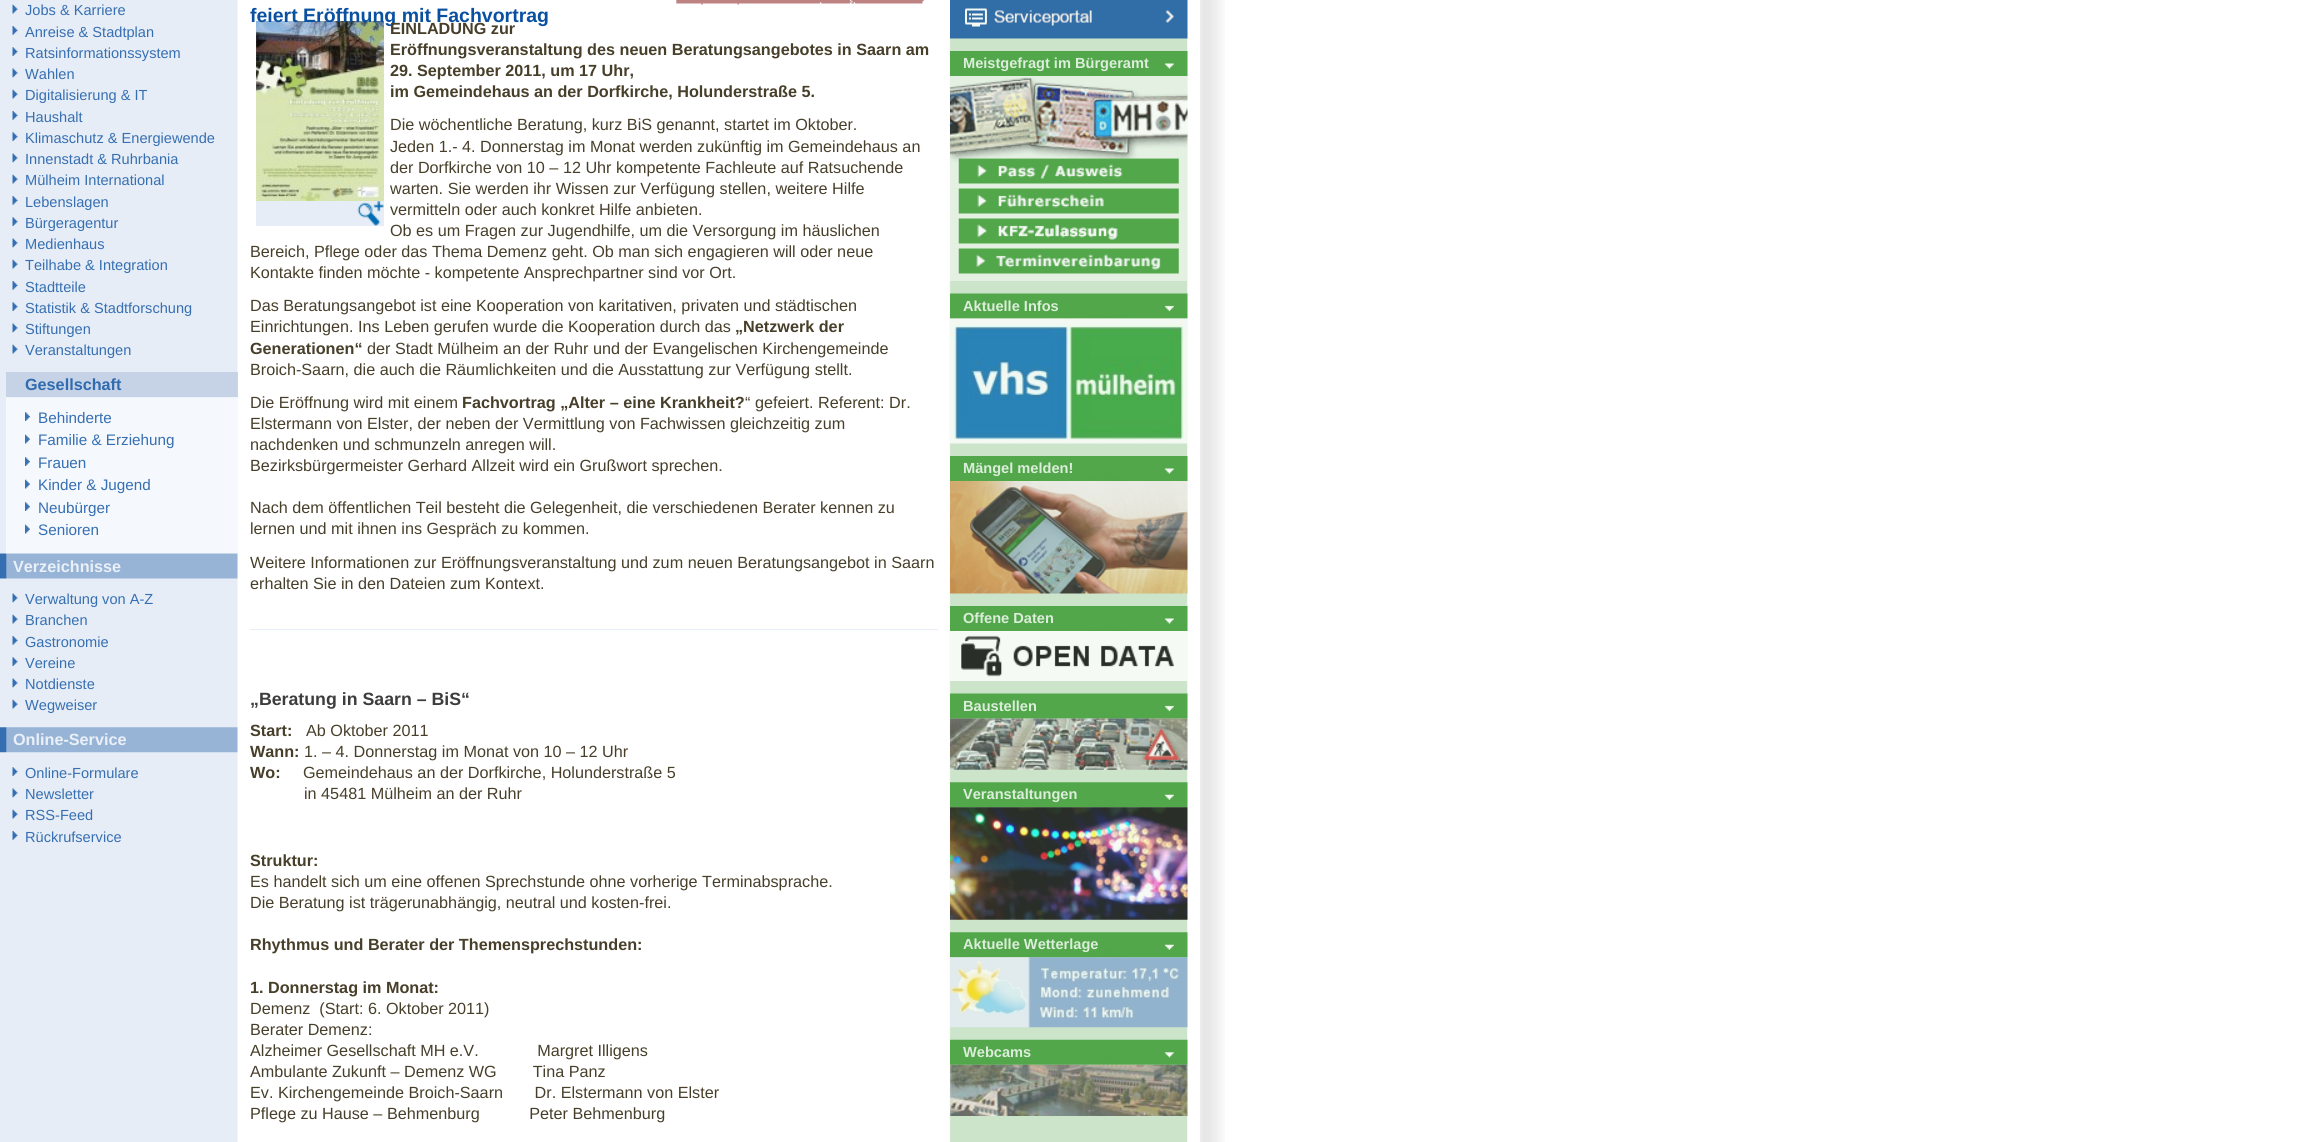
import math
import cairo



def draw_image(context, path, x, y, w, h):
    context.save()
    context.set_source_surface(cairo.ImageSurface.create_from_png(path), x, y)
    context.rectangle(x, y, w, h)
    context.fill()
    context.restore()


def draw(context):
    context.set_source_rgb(1, 1, 1)
    context.paint()
    draw_image(context, "images/1.png", 1200, 0, 25, 1142)
    draw_image(context, "images/2.png", 0, 0, 1188, 1142)
    draw_image(context, "images/3.png", 12, 4, 6, 10)
    draw_image(context, "images/4.png", 12, 26, 6, 9)
    draw_image(context, "images/5.png", 12, 47, 6, 9)
    draw_image(context, "images/6.png", 12, 68, 6, 10)
    draw_image(context, "images/3.png", 12, 89, 6, 10)
    draw_image(context, "images/4.png", 12, 111, 6, 9)
    draw_image(context, "images/5.png", 12, 132, 6, 9)
    draw_image(context, "images/6.png", 12, 153, 6, 10)
    draw_image(context, "images/3.png", 12, 174, 6, 10)
    draw_image(context, "images/4.png", 12, 196, 6, 9)
    draw_image(context, "images/5.png", 12, 217, 6, 9)
    draw_image(context, "images/6.png", 12, 238, 6, 10)
    draw_image(context, "images/3.png", 12, 259, 6, 10)
    draw_image(context, "images/4.png", 12, 281, 6, 9)
    draw_image(context, "images/5.png", 12, 302, 6, 9)
    draw_image(context, "images/6.png", 12, 323, 6, 10)
    draw_image(context, "images/3.png", 12, 344, 6, 10)
    context.set_source_rgba(190 / 255, 205 / 255, 227 / 255, 0.8)
    context.rectangle(6, 372, 232, 26)
    context.fill()
    context.set_source_rgba(248 / 255, 251 / 255, 254 / 255, 0.8)
    context.rectangle(6, 397, 232, 157)
    context.fill()
    draw_image(context, "images/7.png", 25, 412, 5, 9)
    draw_image(context, "images/8.png", 25, 434, 5, 10)
    draw_image(context, "images/7.png", 25, 457, 5, 9)
    draw_image(context, "images/9.png", 25, 479, 5, 10)
    draw_image(context, "images/7.png", 25, 502, 5, 9)
    draw_image(context, "images/9.png", 25, 524, 5, 10)
    draw_image(context, "images/10.png", 0, 553, 238, 26)
    draw_image(context, "images/6.png", 12, 593, 6, 10)
    draw_image(context, "images/3.png", 12, 614, 6, 10)
    draw_image(context, "images/4.png", 12, 636, 6, 9)
    draw_image(context, "images/5.png", 12, 657, 6, 9)
    draw_image(context, "images/11.png", 12, 678, 6, 10)
    draw_image(context, "images/3.png", 12, 699, 6, 10)
    draw_image(context, "images/12.png", 0, 727, 238, 26)
    draw_image(context, "images/5.png", 12, 767, 6, 9)
    draw_image(context, "images/6.png", 12, 788, 6, 10)
    draw_image(context, "images/3.png", 12, 809, 6, 10)
    draw_image(context, "images/13.png", 12, 831, 6, 9)
    draw_image(context, "images/14.png", 676, 0, 248, 5)
    context.set_source_rgb(230 / 255, 237 / 255, 246 / 255)
    context.rectangle(256, 21, 128, 205)
    context.fill()
    draw_image(context, "images/15.png", 256, 21, 128, 205)
    draw_image(context, "images/16.png", 256, 21, 128, 180)
    context.rectangle(250, 629, 688, 1)
    context.fill()
    draw_image(context, "images/17.png", 950, 0, 238, 39)
    draw_image(context, "images/18.png", 950, 51, 238, 25)
    draw_image(context, "images/19.png", 950, 76, 238, 205)
    draw_image(context, "images/20.png", 950, 293, 238, 26)
    draw_image(context, "images/21.png", 950, 318, 238, 126)
    draw_image(context, "images/18.png", 950, 456, 238, 25)
    draw_image(context, "images/22.png", 950, 481, 238, 113)
    draw_image(context, "images/18.png", 950, 606, 238, 25)
    draw_image(context, "images/23.png", 950, 631, 238, 50)
    draw_image(context, "images/24.png", 950, 693, 238, 26)
    draw_image(context, "images/25.png", 950, 718, 238, 52)
    draw_image(context, "images/26.png", 950, 782, 238, 26)
    draw_image(context, "images/27.png", 950, 807, 238, 113)
    draw_image(context, "images/26.png", 950, 932, 238, 26)
    draw_image(context, "images/28.png", 950, 957, 238, 71)
    draw_image(context, "images/29.png", 950, 1039, 238, 26)
    draw_image(context, "images/30.png", 950, 1064, 238, 52)
    context.select_font_face("Liberation Sans")
    context.set_font_size(14.6)
    context.set_source_rgb(54 / 255, 111 / 255, 178 / 255)
    context.move_to(25, 15)
    context.show_text("Jobs & Karriere")
    context.move_to(25, 37)
    context.show_text("Anreise & Stadtplan")
    context.move_to(25, 58)
    context.show_text("Ratsinformationssystem")
    context.move_to(25, 79)
    context.show_text("Wahlen")
    context.move_to(25, 100)
    context.show_text("Digitalisierung & IT")
    context.move_to(25, 122)
    context.show_text("Haushalt")
    context.move_to(25, 143)
    context.show_text("Klimaschutz & Energiewende")
    context.move_to(25, 164)
    context.show_text("Innenstadt & Ruhrbania")
    context.move_to(25, 185)
    context.show_text("Mülheim International")
    context.move_to(25, 207)
    context.show_text("Lebenslagen")
    context.move_to(25, 228)
    context.show_text("Bürgeragentur")
    context.move_to(25, 249)
    context.show_text("Medienhaus")
    context.move_to(25, 270)
    context.show_text("Teilhabe & Integration")
    context.move_to(25, 292)
    context.show_text("Stadtteile")
    context.move_to(25, 313)
    context.show_text("Statistik & Stadtforschung")
    context.move_to(25, 334)
    context.show_text("Stiftungen")
    context.move_to(25, 355)
    context.show_text("Veranstaltungen")
    context.select_font_face("Liberation Sans", cairo.FontSlant.NORMAL, cairo.FontWeight.BOLD)
    context.set_font_size(16.2)
    context.set_source_rgb(48 / 255, 106 / 255, 175 / 255)
    context.move_to(25, 390)
    context.show_text("Gesellschaft")
    context.select_font_face("Liberation Sans")
    context.set_font_size(15.25)
    context.set_source_rgb(54 / 255, 111 / 255, 178 / 255)
    context.move_to(38, 423)
    context.show_text("Behinderte")
    context.move_to(38, 445)
    context.show_text("Familie & Erziehung")
    context.move_to(38, 468)
    context.show_text("Frauen")
    context.move_to(38, 490)
    context.show_text("Kinder & Jugend")
    context.move_to(38, 513)
    context.show_text("Neubürger")
    context.move_to(38, 535)
    context.show_text("Senioren")
    context.select_font_face("Liberation Sans", cairo.FontSlant.NORMAL, cairo.FontWeight.BOLD)
    context.set_font_size(16.2)
    context.set_source_rgb(234 / 255, 240 / 255, 247 / 255)
    context.move_to(13, 572)
    context.show_text("Verzeichnisse")
    context.select_font_face("Liberation Sans")
    context.set_font_size(14.6)
    context.set_source_rgb(54 / 255, 111 / 255, 178 / 255)
    context.move_to(25, 604)
    context.show_text("Verwaltung von A-Z")
    context.move_to(25, 625)
    context.show_text("Branchen")
    context.move_to(25, 647)
    context.show_text("Gastronomie")
    context.move_to(25, 668)
    context.show_text("Vereine")
    context.move_to(25, 689)
    context.show_text("Notdienste")
    context.move_to(25, 710)
    context.show_text("Wegweiser")
    context.select_font_face("Liberation Sans", cairo.FontSlant.NORMAL, cairo.FontWeight.BOLD)
    context.set_font_size(16.2)
    context.set_source_rgb(234 / 255, 240 / 255, 247 / 255)
    context.move_to(13, 745)
    context.show_text("Online-Service")
    context.select_font_face("Liberation Sans")
    context.set_font_size(14.6)
    context.set_source_rgb(54 / 255, 111 / 255, 178 / 255)
    context.move_to(25, 778)
    context.show_text("Online-Formulare")
    context.move_to(25, 799)
    context.show_text("Newsletter")
    context.move_to(25, 820)
    context.show_text("RSS-Feed")
    context.move_to(25, 842)
    context.show_text("Rückrufservice")
    context.select_font_face("Liberation Sans", cairo.FontSlant.NORMAL, cairo.FontWeight.BOLD)
    context.set_font_size(19.5)
    context.set_source_rgb(10 / 255, 80 / 255, 161 / 255)
    context.move_to(250, 22)
    context.show_text("feiert Eröffnung mit Fachvortrag")
    context.set_font_size(16.2)
    context.set_source_rgb(71 / 255, 63 / 255, 42 / 255)
    context.move_to(390, 34)
    context.show_text("EINLADUNG zur")
    context.move_to(390, 55)
    context.show_text("Eröffnungsveranstaltung des neuen Beratungsangebotes in Saarn am")
    context.move_to(390, 76)
    context.show_text("29. September 2011, um 17 Uhr,")
    context.move_to(390, 97)
    context.show_text("im Gemeindehaus an der Dorfkirche, Holunderstraße 5.")
    context.select_font_face("Liberation Sans")
    context.move_to(390, 130)
    context.show_text("Die wöchentliche Beratung, kurz BiS genannt, startet im Oktober.")
    context.move_to(390, 152)
    context.show_text("Jeden 1.- 4. Donnerstag im Monat werden zukünftig im Gemeindehaus an")
    context.move_to(390, 173)
    context.show_text("der Dorfkirche von 10 – 12 Uhr kompetente Fachleute auf Ratsuchende")
    context.move_to(390, 194)
    context.show_text("warten. Sie werden ihr Wissen zur Verfügung stellen, weitere Hilfe")
    context.move_to(390, 215)
    context.show_text("vermitteln oder auch konkret Hilfe anbieten.")
    context.move_to(390, 236)
    context.show_text("Ob es um Fragen zur Jugendhilfe, um die Versorgung im häuslichen")
    context.move_to(250, 257)
    context.show_text("Bereich, Pflege oder das Thema Demenz geht. Ob man sich engagieren will oder neue")
    context.move_to(250, 278)
    context.show_text("Kontakte finden möchte - kompetente Ansprechpartner sind vor Ort.")
    context.move_to(250, 311)
    context.show_text("Das Beratungsangebot ist eine Kooperation von karitativen, privaten und städtischen")
    context.move_to(250, 332)
    context.show_text("Einrichtungen. Ins Leben gerufen wurde die Kooperation durch das")
    context.select_font_face("Liberation Sans", cairo.FontSlant.NORMAL, cairo.FontWeight.BOLD)
    context.move_to(735, 332)
    context.show_text("„Netzwerk der")
    context.move_to(250, 354)
    context.show_text("Generationen“")
    context.select_font_face("Liberation Sans")
    context.move_to(367, 354)
    context.show_text("der Stadt Mülheim an der Ruhr und der Evangelischen Kirchengemeinde")
    context.move_to(250, 375)
    context.show_text("Broich-Saarn, die auch die Räumlichkeiten und die Ausstattung zur Verfügung stellt.")
    context.move_to(250, 408)
    context.show_text("Die Eröffnung wird mit einem")
    context.select_font_face("Liberation Sans", cairo.FontSlant.NORMAL, cairo.FontWeight.BOLD)
    context.move_to(462, 408)
    context.show_text("Fachvortrag „Alter – eine Krankheit?")
    context.select_font_face("Liberation Sans")
    context.move_to(745, 408)
    context.show_text("“ gefeiert. Referent: Dr.")
    context.move_to(250, 429)
    context.show_text("Elstermann von Elster, der neben der Vermittlung von Fachwissen gleichzeitig zum")
    context.move_to(250, 450)
    context.show_text("nachdenken und schmunzeln anregen will.")
    context.move_to(250, 471)
    context.show_text("Bezirksbürgermeister Gerhard Allzeit wird ein Grußwort sprechen.")
    context.move_to(250, 513)
    context.show_text("Nach dem öffentlichen Teil besteht die Gelegenheit, die verschiedenen Berater kennen zu")
    context.move_to(250, 534)
    context.show_text("lernen und mit ihnen ins Gespräch zu kommen.")
    context.move_to(250, 568)
    context.show_text("Weitere Informationen zur Eröffnungsveranstaltung und zum neuen Beratungsangebot in Saarn")
    context.move_to(250, 589)
    context.show_text("erhalten Sie in den Dateien zum Kontext.")
    context.select_font_face("Liberation Sans", cairo.FontSlant.NORMAL, cairo.FontWeight.BOLD)
    context.set_font_size(17.75)
    context.set_source_rgb(61 / 255, 61 / 255, 61 / 255)
    context.move_to(250, 705)
    context.show_text("„Beratung in Saarn – BiS“")
    context.set_font_size(16.2)
    context.set_source_rgb(71 / 255, 63 / 255, 42 / 255)
    context.move_to(250, 736)
    context.show_text("Start:")
    context.select_font_face("Liberation Sans")
    context.move_to(306, 736)
    context.show_text("Ab Oktober 2011")
    context.select_font_face("Liberation Sans", cairo.FontSlant.NORMAL, cairo.FontWeight.BOLD)
    context.move_to(250, 757)
    context.show_text("Wann:")
    context.select_font_face("Liberation Sans")
    context.move_to(304, 757)
    context.show_text("1. – 4. Donnerstag im Monat von 10 – 12 Uhr")
    context.select_font_face("Liberation Sans", cairo.FontSlant.NORMAL, cairo.FontWeight.BOLD)
    context.move_to(250, 778)
    context.show_text("Wo:")
    context.select_font_face("Liberation Sans")
    context.move_to(303, 778)
    context.show_text("Gemeindehaus an der Dorfkirche, Holunderstraße 5")
    context.move_to(304, 799)
    context.show_text("in 45481 Mülheim an der Ruhr")
    context.select_font_face("Liberation Sans", cairo.FontSlant.NORMAL, cairo.FontWeight.BOLD)
    context.move_to(250, 866)
    context.show_text("Struktur:")
    context.select_font_face("Liberation Sans")
    context.move_to(250, 887)
    context.show_text("Es handelt sich um eine offenen Sprechstunde ohne vorherige Terminabsprache.")
    context.move_to(250, 908)
    context.show_text("Die Beratung ist trägerunabhängig, neutral und kosten-frei.")
    context.select_font_face("Liberation Sans", cairo.FontSlant.NORMAL, cairo.FontWeight.BOLD)
    context.move_to(250, 950)
    context.show_text("Rhythmus und Berater der Themensprechstunden:")
    context.move_to(250, 993)
    context.show_text("1. Donnerstag im Monat:")
    context.select_font_face("Liberation Sans")
    context.move_to(250, 1014)
    context.show_text("Demenz  (Start: 6. Oktober 2011)")
    context.move_to(250, 1035)
    context.show_text("Berater Demenz:")
    context.move_to(250, 1056)
    context.show_text("Alzheimer Gesellschaft MH e.V.             Margret Illigens")
    context.move_to(250, 1077)
    context.show_text("Ambulante Zukunft – Demenz WG        Tina Panz")
    context.move_to(250, 1098)
    context.show_text("Ev. Kirchengemeinde Broich-Saarn       Dr. Elstermann von Elster")
    context.move_to(250, 1119)
    context.show_text("Pflege zu Hause – Behmenburg           Peter Behmenburg")
    context.select_font_face("Liberation Sans", cairo.FontSlant.NORMAL, cairo.FontWeight.BOLD)
    context.set_font_size(14.6)
    context.set_source_rgb(220 / 255, 237 / 255, 219 / 255)
    context.move_to(963, 68)
    context.show_text("Meistgefragt im Bürgeramt")
    context.move_to(963, 311)
    context.show_text("Aktuelle Infos")
    context.move_to(963, 473)
    context.show_text("Mängel melden!")
    context.move_to(963, 623)
    context.show_text("Offene Daten")
    context.move_to(963, 711)
    context.show_text("Baustellen")
    context.move_to(963, 799)
    context.show_text("Veranstaltungen")
    context.move_to(963, 949)
    context.show_text("Aktuelle Wetterlage")
    context.move_to(963, 1057)
    context.show_text("Webcams")


surface = cairo.ImageSurface(cairo.Format.RGB24, 2303, 1142)
context = cairo.Context(surface)
options = cairo.FontOptions()
options.set_hint_metrics(cairo.HintMetrics.OFF)
options.set_hint_style(cairo.HintStyle.NONE)
context.set_font_options(options)
context.set_miter_limit(4)
draw(context)
surface.write_to_png("out.png")
